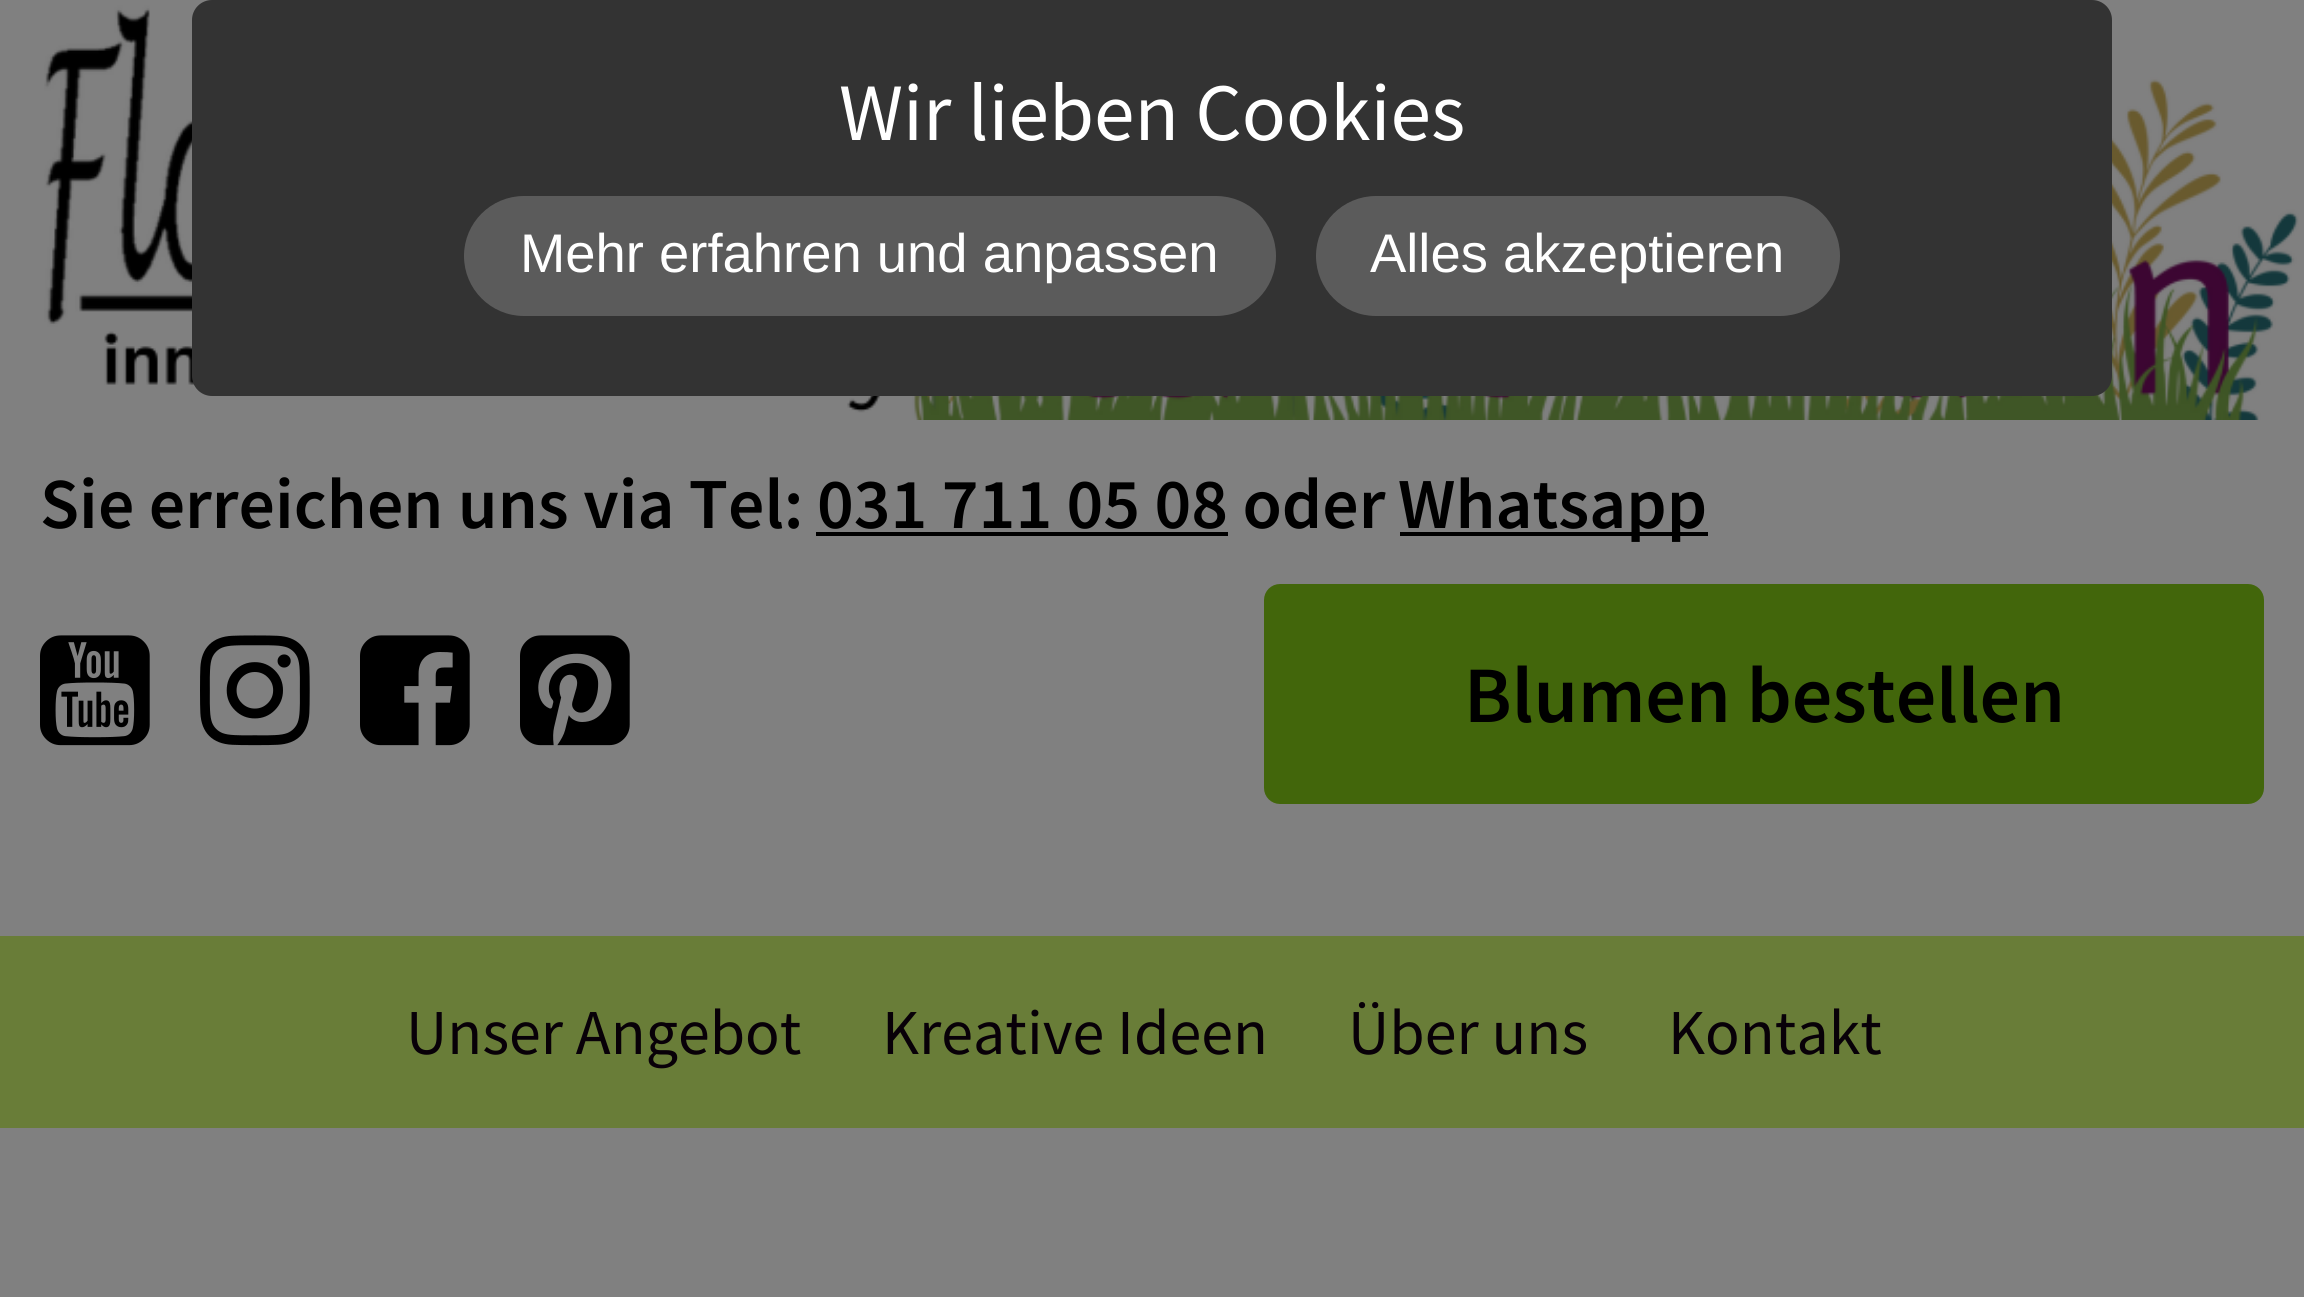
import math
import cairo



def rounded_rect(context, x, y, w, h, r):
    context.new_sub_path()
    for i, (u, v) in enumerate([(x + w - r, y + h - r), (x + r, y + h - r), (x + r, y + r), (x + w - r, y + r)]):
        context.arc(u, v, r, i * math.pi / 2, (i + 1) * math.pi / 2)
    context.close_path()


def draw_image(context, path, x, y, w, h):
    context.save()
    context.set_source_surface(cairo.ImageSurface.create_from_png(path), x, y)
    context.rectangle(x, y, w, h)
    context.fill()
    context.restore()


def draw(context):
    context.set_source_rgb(128 / 255, 128 / 255, 128 / 255)
    context.paint()
    draw_image(context, "images/1.png", 44, 5, 2255, 415)
    context.set_source_rgb(51 / 255, 51 / 255, 51 / 255)
    rounded_rect(context, 192, 0, 1920, 396, 20)
    context.fill()
    context.set_source_rgb(91 / 255, 91 / 255, 91 / 255)
    rounded_rect(context, 464, 196, 812, 120, 60)
    context.fill()
    rounded_rect(context, 1316, 196, 524, 120, 60)
    context.fill()
    context.set_source_rgb(0, 0, 0)
    context.rectangle(816, 532, 412, 4)
    context.fill()
    context.rectangle(1400, 532, 308, 4)
    context.fill()
    draw_image(context, "images/2.png", 40, 635, 110, 111)
    draw_image(context, "images/3.png", 200, 635, 110, 111)
    draw_image(context, "images/4.png", 360, 635, 110, 111)
    draw_image(context, "images/5.png", 520, 635, 110, 111)
    context.set_source_rgb(66 / 255, 102 / 255, 11 / 255)
    rounded_rect(context, 1266, 586, 996, 216, 14)
    context.fill_preserve()
    context.set_line_width(4)
    context.stroke()
    context.set_source_rgb(105 / 255, 125 / 255, 56 / 255)
    context.rectangle(0, 936, 2304, 192)
    context.fill()
    context.select_font_face("Source Sans Pro")
    context.set_font_size(81.5)
    context.set_source_rgb(1, 1, 1)
    context.move_to(839, 140)
    context.show_text("Wir lieben Cookies")
    context.select_font_face("Liberation Sans")
    context.set_font_size(54.4)
    context.move_to(520, 272)
    context.show_text("Mehr erfahren und anpassen")
    context.move_to(1370, 272)
    context.show_text("Alles akzeptieren")
    context.select_font_face("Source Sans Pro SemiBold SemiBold")
    context.set_font_size(71.75)
    context.set_source_rgb(0, 0, 0)
    context.move_to(40, 528)
    context.show_text("Sie erreichen uns via Tel:")
    context.move_to(817, 528)
    context.show_text("031 711 05 08 oder")
    context.move_to(1398, 528)
    context.show_text("Whatsapp")
    context.set_font_size(80)
    context.move_to(1464, 722)
    context.show_text("Blumen bestellen")
    context.select_font_face("Source Sans Pro")
    context.set_font_size(64)
    context.set_source_rgb(8 / 255, 0, 8 / 255)
    context.move_to(406, 1054)
    context.show_text("Unser Angebot")
    context.move_to(882, 1054)
    context.show_text("Kreative Ideen")
    context.move_to(1348, 1054)
    context.show_text("Über uns")
    context.move_to(1668, 1054)
    context.show_text("Kontakt")


surface = cairo.ImageSurface(cairo.Format.RGB24, 2304, 1297)
context = cairo.Context(surface)
options = cairo.FontOptions()
options.set_hint_metrics(cairo.HintMetrics.OFF)
options.set_hint_style(cairo.HintStyle.NONE)
context.set_font_options(options)
context.set_miter_limit(4)
draw(context)
surface.write_to_png("out.png")
